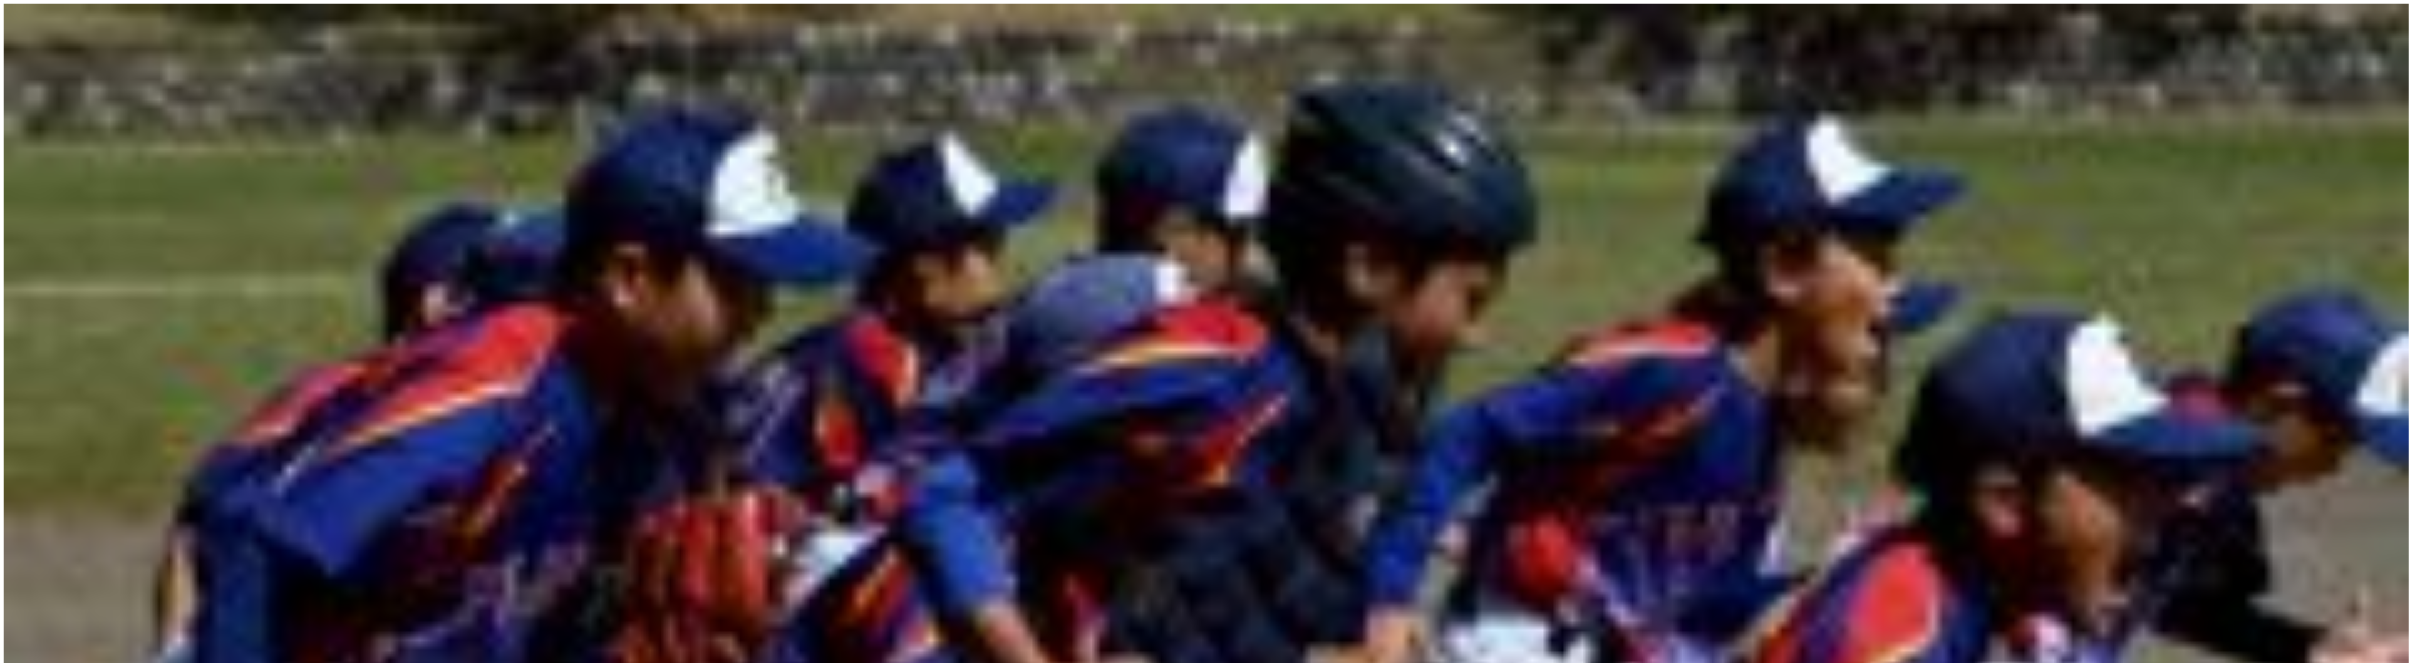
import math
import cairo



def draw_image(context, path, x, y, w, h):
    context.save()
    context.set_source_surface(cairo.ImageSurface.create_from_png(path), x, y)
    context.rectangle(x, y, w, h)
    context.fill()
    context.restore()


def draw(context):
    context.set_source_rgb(1, 1, 1)
    context.paint()
    draw_image(context, "images/1.png", 3, 3, 2406, 660)


surface = cairo.ImageSurface(cairo.Format.RGB24, 2412, 663)
context = cairo.Context(surface)
options = cairo.FontOptions()
options.set_hint_metrics(cairo.HintMetrics.OFF)
options.set_hint_style(cairo.HintStyle.NONE)
context.set_font_options(options)
context.set_miter_limit(4)
draw(context)
surface.write_to_png("out.png")
